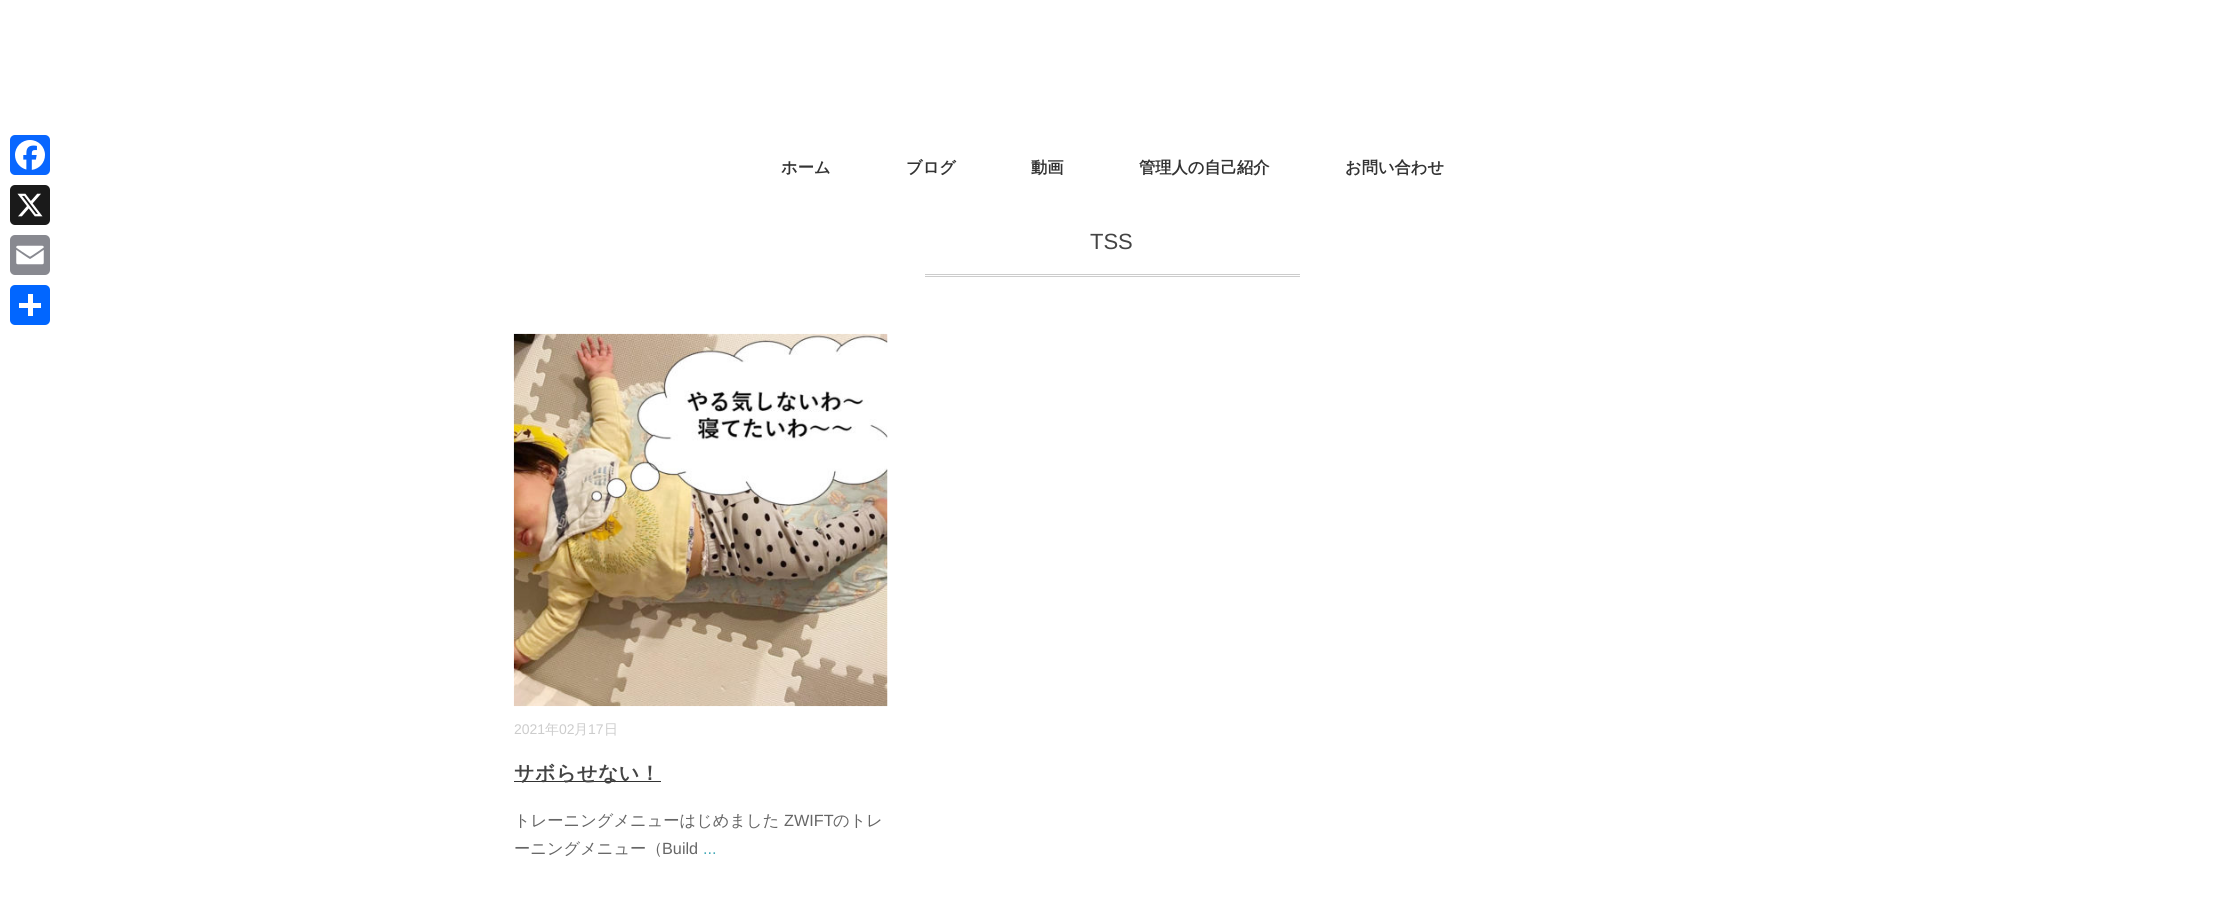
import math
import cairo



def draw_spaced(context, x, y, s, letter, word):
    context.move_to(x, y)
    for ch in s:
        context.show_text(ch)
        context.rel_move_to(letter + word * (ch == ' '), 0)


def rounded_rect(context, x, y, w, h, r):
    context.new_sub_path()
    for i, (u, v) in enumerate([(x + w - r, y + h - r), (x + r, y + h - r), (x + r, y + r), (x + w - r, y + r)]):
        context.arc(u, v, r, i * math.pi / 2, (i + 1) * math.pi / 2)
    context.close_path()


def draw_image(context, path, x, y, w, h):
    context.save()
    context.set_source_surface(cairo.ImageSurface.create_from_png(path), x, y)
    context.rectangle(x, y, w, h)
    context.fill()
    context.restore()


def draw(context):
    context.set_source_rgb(1, 1, 1)
    context.paint()
    context.set_source_rgb(8 / 255, 102 / 255, 1)
    rounded_rect(context, 10, 135, 40, 40, 5)
    context.fill()
    draw_image(context, "images/1.png", 15, 140, 30, 30)
    context.set_source_rgb(26 / 255, 26 / 255, 26 / 255)
    rounded_rect(context, 10, 185, 40, 40, 5)
    context.fill()
    draw_image(context, "images/2.png", 17, 193, 26, 24)
    context.set_source_rgb(136 / 255, 137 / 255, 144 / 255)
    rounded_rect(context, 10, 235, 40, 40, 5)
    context.fill()
    draw_image(context, "images/3.png", 16, 245, 28, 20)
    context.set_source_rgb(1 / 255, 102 / 255, 1)
    rounded_rect(context, 10, 285, 40, 40, 5)
    context.fill()
    context.set_source_rgb(1, 1, 1)
    context.rectangle(28, 294, 5, 22)
    context.fill()
    context.rectangle(19, 303, 22, 5)
    context.fill()
    context.set_source_rgb(204 / 255, 204 / 255, 204 / 255)
    context.rectangle(925, 274, 375, 1)
    context.fill()
    context.rectangle(925, 276, 375, 1)
    context.fill()
    draw_image(context, "images/4.png", 513, 333, 375, 374)
    context.set_source_rgb(51 / 255, 51 / 255, 51 / 255)
    context.rectangle(514, 781, 147, 1)
    context.fill()
    context.select_font_face("WenQuanYi Zen Hei", cairo.FontSlant.NORMAL, cairo.FontWeight.BOLD)
    context.set_font_size(16.25)
    context.move_to(781, 173)
    context.show_text("ホーム")
    context.move_to(906, 173)
    context.show_text("ブログ")
    context.move_to(1031, 173)
    context.show_text("動画")
    context.move_to(1139, 173)
    context.show_text("管理人の自己紹介")
    context.move_to(1345, 173)
    context.show_text("お問い合わせ")
    context.select_font_face("Liberation Sans")
    context.set_font_size(22)
    context.set_source_rgb(68 / 255, 68 / 255, 68 / 255)
    context.move_to(1090, 249)
    context.show_text("TSS")
    context.set_font_size(14)
    context.set_source_rgb(204 / 255, 204 / 255, 204 / 255)
    context.move_to(514, 734)
    context.show_text("2021")
    context.select_font_face("WenQuanYi Zen Hei Medium")
    context.move_to(545, 734)
    context.show_text("年")
    context.select_font_face("Liberation Sans")
    context.move_to(559, 734)
    context.show_text("02")
    context.select_font_face("WenQuanYi Zen Hei Medium")
    context.move_to(574, 734)
    context.show_text("月")
    context.select_font_face("Liberation Sans")
    context.move_to(588, 734)
    context.show_text("17")
    context.select_font_face("WenQuanYi Zen Hei Medium")
    context.move_to(604, 734)
    context.show_text("日")
    context.select_font_face("WenQuanYi Zen Hei", cairo.FontSlant.NORMAL, cairo.FontWeight.BOLD)
    context.set_font_size(20)
    context.set_source_rgb(68 / 255, 68 / 255, 68 / 255)
    draw_spaced(context, 514, 780, "サボらせない！", 0.5, 0)
    context.select_font_face("WenQuanYi Zen Hei Medium")
    context.set_font_size(16.25)
    context.set_source_rgb(102 / 255, 102 / 255, 102 / 255)
    context.move_to(514, 826)
    context.show_text("トレーニングメニューはじめました")
    context.select_font_face("Liberation Sans")
    context.move_to(784, 826)
    context.show_text("ZWIFT")
    context.select_font_face("WenQuanYi Zen Hei Medium")
    context.move_to(833, 826)
    context.show_text("のトレ")
    context.move_to(514, 854)
    context.show_text("ーニングメニュー（")
    context.select_font_face("Liberation Sans")
    context.move_to(662, 854)
    context.show_text("Build")
    context.set_source_rgb(69 / 255, 170 / 255, 184 / 255)
    context.move_to(703, 854)
    context.show_text("...")


surface = cairo.ImageSurface(cairo.Format.RGB24, 2224, 902)
context = cairo.Context(surface)
options = cairo.FontOptions()
options.set_hint_metrics(cairo.HintMetrics.OFF)
options.set_hint_style(cairo.HintStyle.NONE)
context.set_font_options(options)
context.set_miter_limit(4)
draw(context)
surface.write_to_png("out.png")
